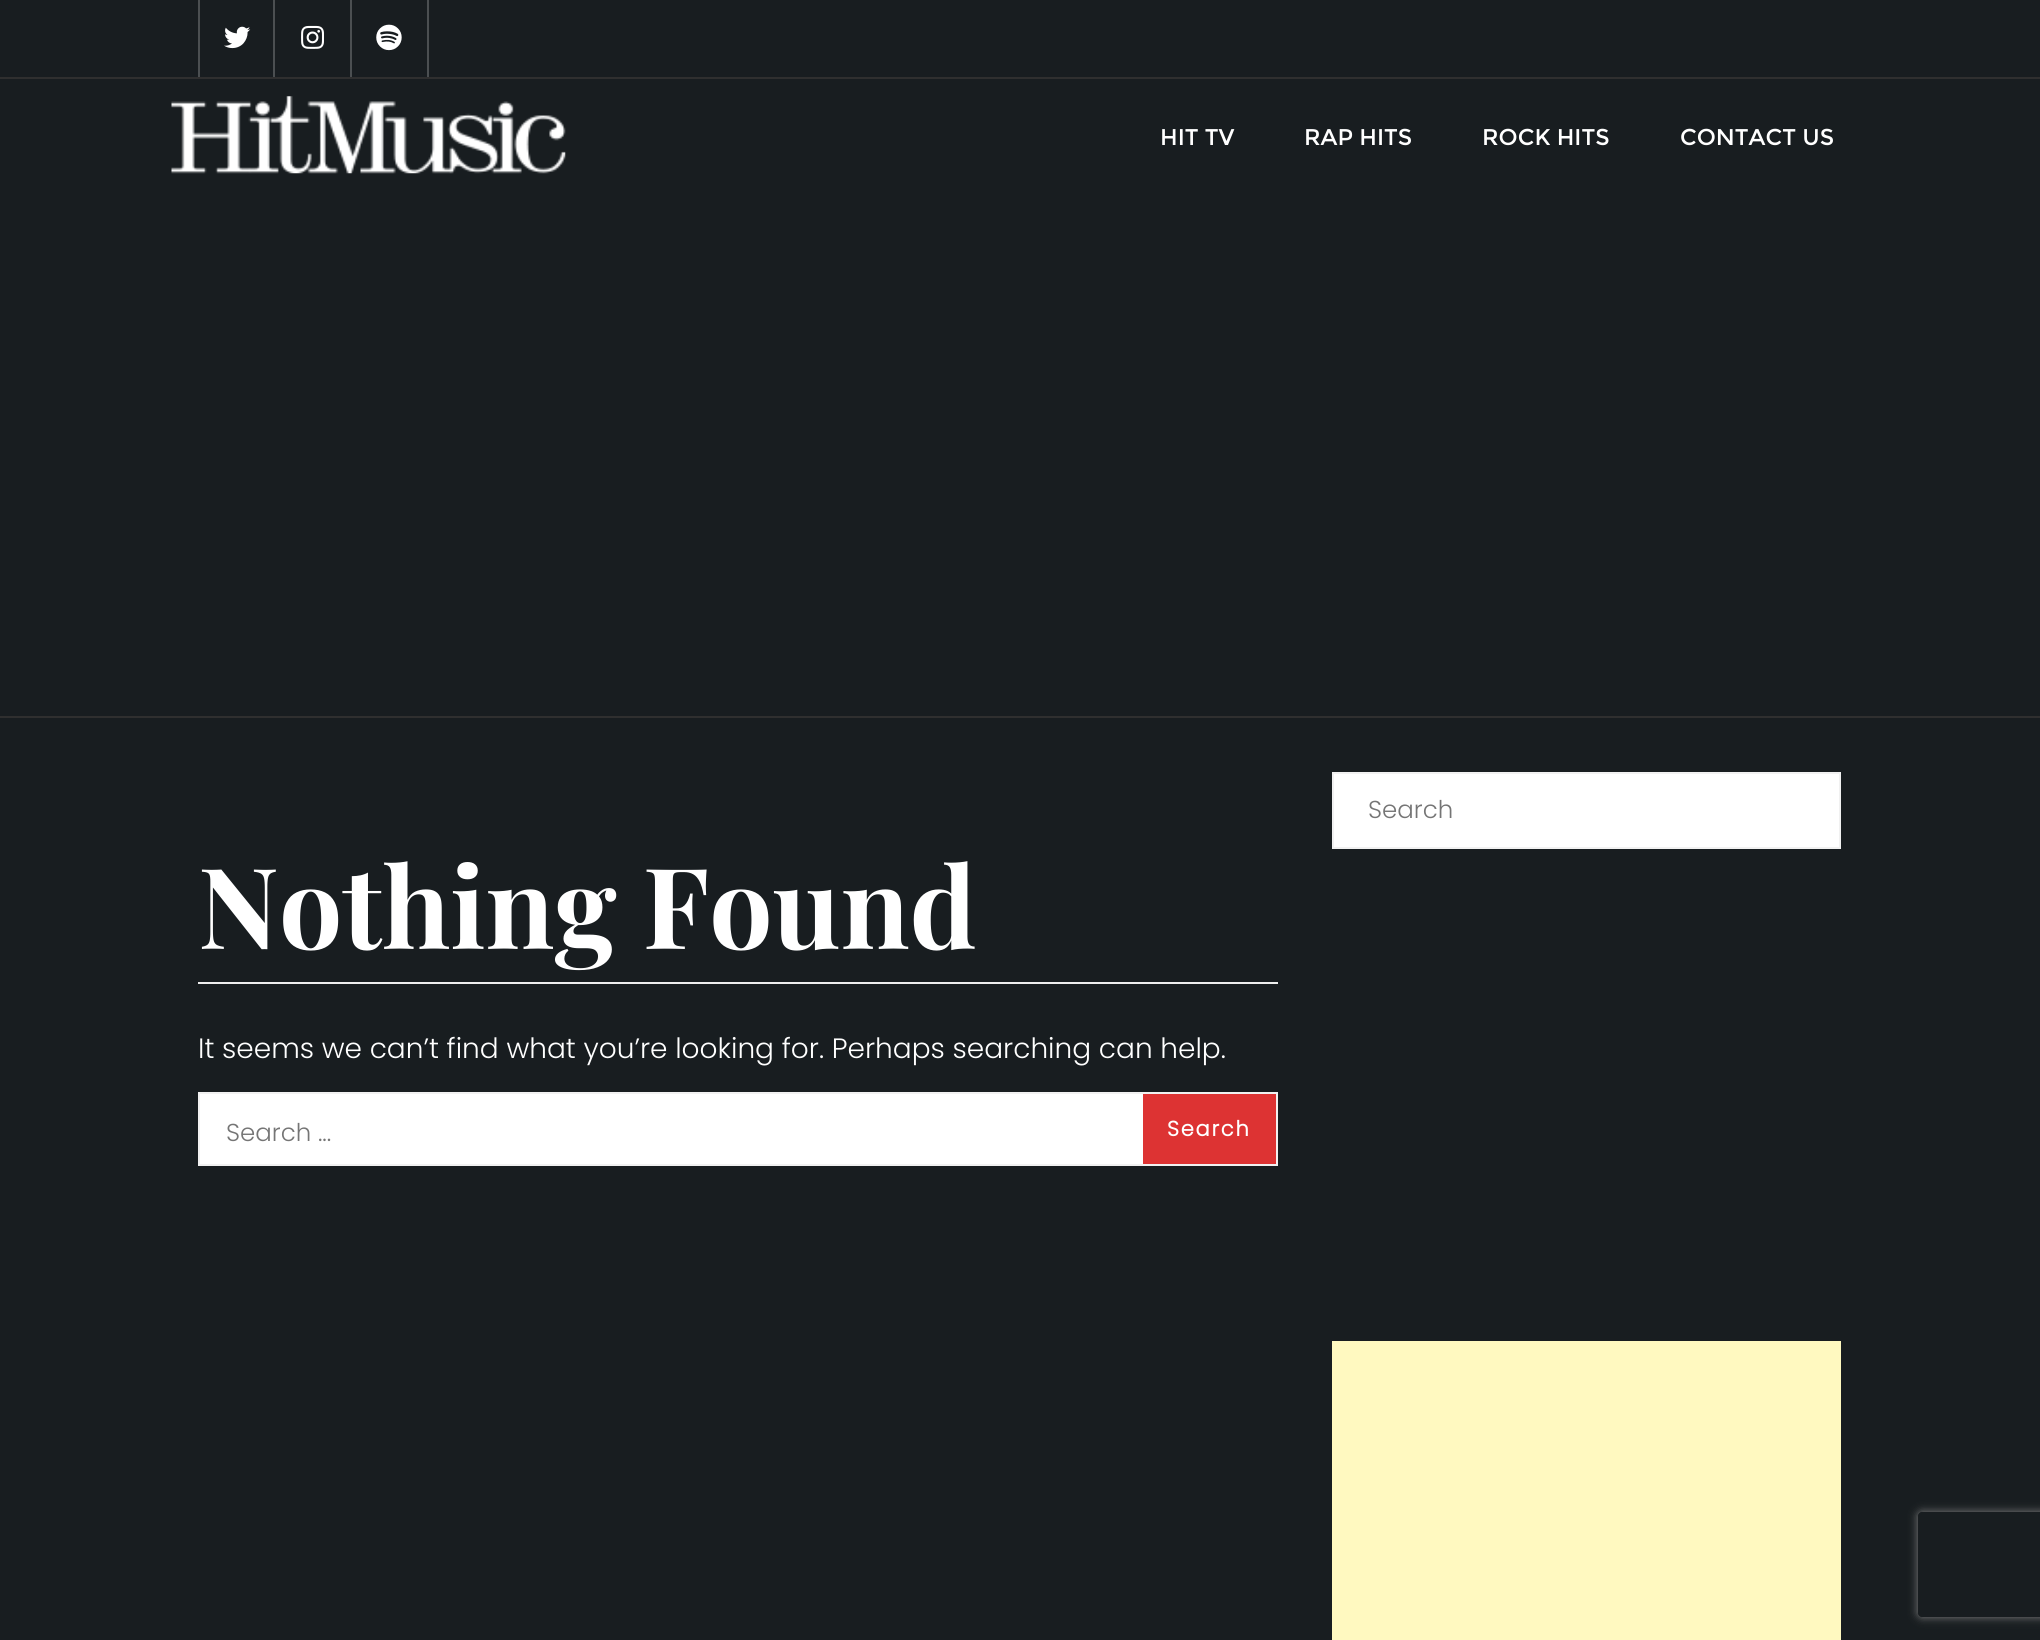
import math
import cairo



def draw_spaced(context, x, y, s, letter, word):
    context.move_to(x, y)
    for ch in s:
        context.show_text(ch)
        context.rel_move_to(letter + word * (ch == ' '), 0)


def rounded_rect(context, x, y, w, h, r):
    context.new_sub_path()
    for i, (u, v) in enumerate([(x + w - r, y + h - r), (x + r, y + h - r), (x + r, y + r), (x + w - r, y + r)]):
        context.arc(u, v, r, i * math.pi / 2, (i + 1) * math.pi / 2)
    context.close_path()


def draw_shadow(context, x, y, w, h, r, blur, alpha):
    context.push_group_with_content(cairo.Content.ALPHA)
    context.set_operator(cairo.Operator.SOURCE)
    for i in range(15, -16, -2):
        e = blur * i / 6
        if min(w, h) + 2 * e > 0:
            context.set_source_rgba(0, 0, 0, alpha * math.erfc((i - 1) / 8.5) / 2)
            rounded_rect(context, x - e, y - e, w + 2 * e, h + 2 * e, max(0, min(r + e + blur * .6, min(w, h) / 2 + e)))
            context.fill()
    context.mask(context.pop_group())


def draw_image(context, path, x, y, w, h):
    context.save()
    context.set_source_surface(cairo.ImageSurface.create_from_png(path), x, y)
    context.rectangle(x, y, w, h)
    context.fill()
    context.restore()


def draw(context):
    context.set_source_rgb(24 / 255, 29 / 255, 32 / 255)
    context.paint()
    context.set_source_rgb(47 / 255, 47 / 255, 47 / 255)
    context.rectangle(0, 716, 2040, 2)
    context.fill()
    context.rectangle(0, 77, 2040, 2)
    context.fill()
    context.set_source_rgb(75 / 255, 79 / 255, 81 / 255)
    context.rectangle(273, 0, 2, 77)
    context.fill()
    context.rectangle(198, 0, 2, 77)
    context.fill()
    draw_image(context, "images/1.png", 224, 26, 27, 23)
    context.rectangle(350, 0, 2, 77)
    context.fill()
    draw_image(context, "images/2.png", 301, 25, 23, 24)
    context.rectangle(427, 0, 2, 77)
    context.fill()
    draw_image(context, "images/3.png", 376, 24, 26, 27)
    draw_image(context, "images/4.png", 171, 96, 395, 78)
    context.set_source_rgb(1, 1, 1)
    context.rectangle(1333, 773, 507, 75)
    context.fill_preserve()
    context.set_source_rgb(241 / 255, 241 / 255, 241 / 255)
    context.stroke()
    context.set_source_rgb(1, 249 / 255, 192 / 255)
    context.rectangle(1332, 1341, 509, 299)
    context.fill()
    context.set_source_rgb(238 / 255, 238 / 255, 238 / 255)
    context.rectangle(198, 982, 1080, 2)
    context.fill()
    context.set_source_rgb(1, 1, 1)
    context.rectangle(200, 1094, 943, 70)
    context.fill()
    context.rectangle(199, 1093, 1078, 72)
    context.set_source_rgb(241 / 255, 241 / 255, 241 / 255)
    context.stroke()
    context.set_source_rgb(221 / 255, 51 / 255, 51 / 255)
    context.rectangle(1143, 1094, 133, 70)
    context.fill()
    context.save()
    context.set_fill_rule(cairo.FillRule.EVEN_ODD)
    context.new_path()
    context.move_to(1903, 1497)
    context.line_to(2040, 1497)
    context.line_to(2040, 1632)
    context.line_to(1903, 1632)
    context.close_path()
    context.move_to(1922, 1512)
    context.line_to(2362, 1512)
    context.curve_to(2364, 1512, 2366, 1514, 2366, 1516)
    context.line_to(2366, 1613)
    context.curve_to(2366, 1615, 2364, 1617, 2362, 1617)
    context.line_to(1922, 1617)
    context.curve_to(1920, 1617, 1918, 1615, 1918, 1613)
    context.line_to(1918, 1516)
    context.curve_to(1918, 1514, 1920, 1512, 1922, 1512)
    context.close_path()
    context.clip()
    context.set_source_rgb(128 / 255, 128 / 255, 128 / 255)
    draw_shadow(context, 1918, 1512, 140, 105, 4, 4.5, 1)
    context.restore()
    context.select_font_face("Montserrat")
    context.set_font_size(22.75)
    context.set_source_rgb(1, 1, 1)
    context.move_to(1160, 145)
    context.show_text("HIT TV")
    context.move_to(1304, 145)
    context.show_text("RAP HITS")
    context.move_to(1482, 145)
    context.show_text("ROCK HITS")
    context.move_to(1680, 145)
    context.show_text("CONTACT US")
    context.select_font_face("Poppins Light")
    context.set_font_size(24.5)
    context.set_source_rgb(117 / 255, 117 / 255, 117 / 255)
    context.move_to(1368, 818)
    context.show_text("Search")
    context.select_font_face("Playfair Display", cairo.FontSlant.NORMAL, cairo.FontWeight.BOLD)
    context.set_font_size(112.25)
    context.set_source_rgb(1, 1, 1)
    context.move_to(198, 949)
    context.show_text("Nothing Found")
    context.select_font_face("Poppins Light")
    context.set_font_size(28)
    context.move_to(198, 1058)
    context.show_text("It seems we can’t find what you’re looking for. Perhaps searching can help.")
    context.set_font_size(24.5)
    context.set_source_rgb(117 / 255, 117 / 255, 117 / 255)
    context.move_to(226, 1141)
    context.show_text("Search ...")
    context.select_font_face("Poppins", cairo.FontSlant.NORMAL, cairo.FontWeight.BOLD)
    context.set_font_size(21)
    context.set_source_rgb(1, 1, 1)
    draw_spaced(context, 1167, 1136, "Search", 1.75, 0)


surface = cairo.ImageSurface(cairo.Format.RGB24, 2040, 1640)
context = cairo.Context(surface)
options = cairo.FontOptions()
options.set_hint_metrics(cairo.HintMetrics.OFF)
options.set_hint_style(cairo.HintStyle.NONE)
context.set_font_options(options)
context.set_miter_limit(4)
draw(context)
surface.write_to_png("out.png")
